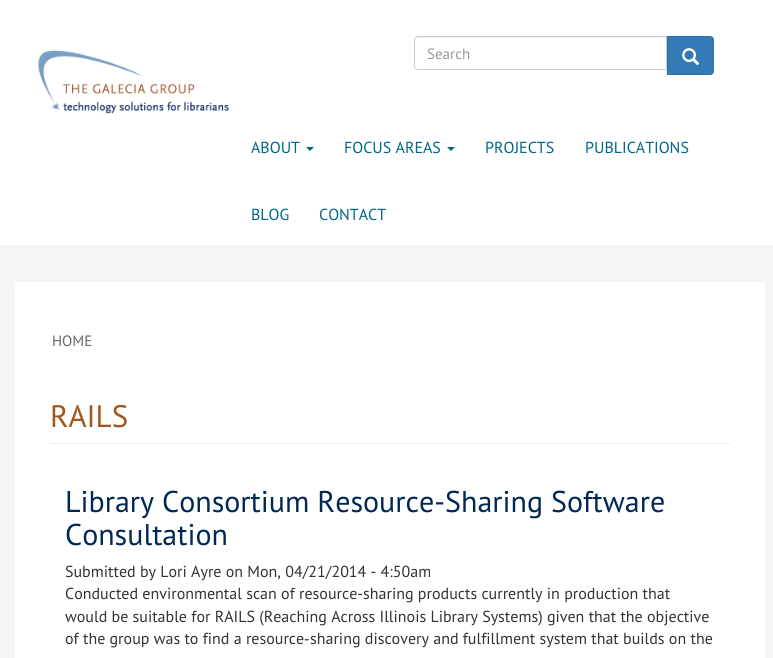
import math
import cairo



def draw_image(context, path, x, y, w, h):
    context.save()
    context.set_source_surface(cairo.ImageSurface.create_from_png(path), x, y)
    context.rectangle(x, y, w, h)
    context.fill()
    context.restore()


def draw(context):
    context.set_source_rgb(1, 1, 1)
    context.paint()
    draw_image(context, "images/1.png", 38, 50, 191, 64)
    context.set_source_rgb(236 / 255, 236 / 255, 236 / 255)
    context.new_path()
    context.move_to(418, 38)
    context.line_to(666, 38)
    context.line_to(666, 37)
    context.line_to(418, 37)
    context.curve_to(416, 37, 415, 39, 415, 41)
    context.curve_to(415, 39, 416, 38, 418, 38)
    context.close_path()
    context.fill()
    context.new_path()
    context.move_to(418, 36.5)
    context.line_to(666.5, 36.5)
    context.line_to(666.5, 69.5)
    context.line_to(418, 69.5)
    context.curve_to(416, 69.5, 414.5, 68, 414.5, 66)
    context.line_to(414.5, 40)
    context.curve_to(414.5, 38, 416, 36.5, 418, 36.5)
    context.close_path()
    context.set_source_rgb(204 / 255, 204 / 255, 204 / 255)
    context.set_line_width(1)
    context.stroke()
    context.set_source_rgb(51 / 255, 122 / 255, 183 / 255)
    context.new_path()
    context.move_to(667.5, 36.5)
    context.line_to(710, 36.5)
    context.curve_to(712, 36.5, 713.5, 38, 713.5, 40)
    context.line_to(713.5, 71)
    context.curve_to(713.5, 73, 712, 74.5, 710, 74.5)
    context.line_to(667.5, 74.5)
    context.close_path()
    context.fill_preserve()
    context.set_source_rgb(46 / 255, 109 / 255, 164 / 255)
    context.stroke()
    draw_image(context, "images/2.png", 682, 48, 18, 18)
    context.set_source_rgb(0, 102 / 255, 135 / 255)
    context.new_path()
    context.move_to(306, 147)
    context.line_to(314, 147)
    context.line_to(310, 151)
    context.close_path()
    context.fill()
    context.new_path()
    context.move_to(447, 147)
    context.line_to(455, 147)
    context.line_to(451, 151)
    context.close_path()
    context.fill()
    context.set_source_rgb(245 / 255, 245 / 255, 245 / 255)
    context.rectangle(0, 245, 773, 413)
    context.fill()
    context.set_source_rgb(1, 1, 1)
    context.rectangle(15, 282, 750, 376)
    context.fill()
    context.set_source_rgb(238 / 255, 238 / 255, 238 / 255)
    context.rectangle(50, 443, 680, 1)
    context.fill()
    context.select_font_face("PT Sans")
    context.set_font_size(15)
    context.set_source_rgb(153 / 255, 153 / 255, 153 / 255)
    context.move_to(427, 59)
    context.show_text("Search")
    context.set_font_size(16)
    context.set_source_rgb(0, 102 / 255, 135 / 255)
    context.move_to(251, 153)
    context.show_text("ABOUT")
    context.move_to(344, 153)
    context.show_text("FOCUS AREAS")
    context.move_to(485, 153)
    context.show_text("PROJECTS")
    context.move_to(585, 153)
    context.show_text("PUBLICATIONS")
    context.move_to(251, 220)
    context.show_text("BLOG")
    context.move_to(319, 220)
    context.show_text("CONTACT")
    context.set_font_size(15)
    context.set_source_rgb(102 / 255, 102 / 255, 102 / 255)
    context.move_to(52, 346)
    context.show_text("HOME")
    context.set_font_size(31)
    context.set_source_rgb(161 / 255, 86 / 255, 28 / 255)
    context.move_to(50, 427)
    context.show_text("RAILS")
    context.set_font_size(30)
    context.set_source_rgb(0, 40 / 255, 85 / 255)
    context.move_to(65, 512)
    context.show_text("Library Consortium Resource-Sharing Software")
    context.move_to(65, 545)
    context.show_text("Consultation")
    context.set_font_size(16)
    context.set_source_rgb(51 / 255, 51 / 255, 51 / 255)
    context.move_to(65, 577)
    context.show_text("Submitted by Lori Ayre on Mon, 04/21/2014 - 4:50am")
    context.move_to(65, 599)
    context.show_text("Conducted environmental scan of resource-sharing products currently in production that")
    context.move_to(65, 622)
    context.show_text("would be suitable for RAILS (Reaching Across Illinois Library Systems) given that the objective")
    context.move_to(65, 644)
    context.show_text("of the group was to find a resource")
    context.select_font_face("Liberation Sans")
    context.move_to(304, 644)
    context.show_text("‐")
    context.select_font_face("PT Sans")
    context.move_to(310, 644)
    context.show_text("sharing discovery and fulfillment system that builds on the")


surface = cairo.ImageSurface(cairo.Format.RGB24, 773, 658)
context = cairo.Context(surface)
options = cairo.FontOptions()
options.set_hint_metrics(cairo.HintMetrics.OFF)
options.set_hint_style(cairo.HintStyle.NONE)
context.set_font_options(options)
context.set_miter_limit(4)
draw(context)
surface.write_to_png("out.png")
